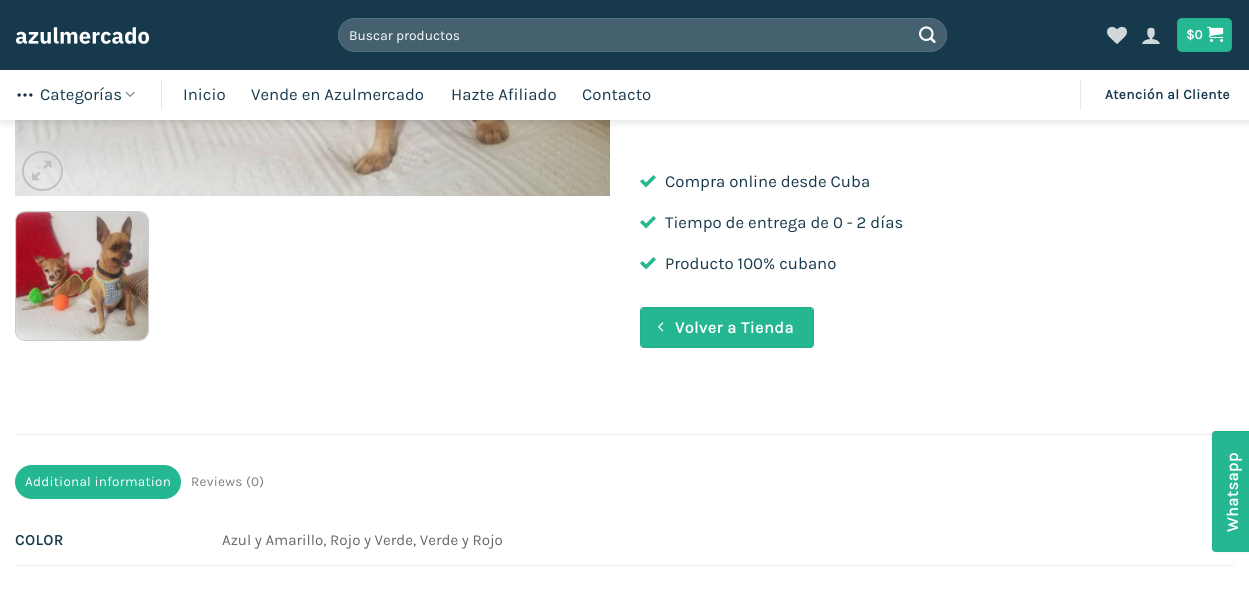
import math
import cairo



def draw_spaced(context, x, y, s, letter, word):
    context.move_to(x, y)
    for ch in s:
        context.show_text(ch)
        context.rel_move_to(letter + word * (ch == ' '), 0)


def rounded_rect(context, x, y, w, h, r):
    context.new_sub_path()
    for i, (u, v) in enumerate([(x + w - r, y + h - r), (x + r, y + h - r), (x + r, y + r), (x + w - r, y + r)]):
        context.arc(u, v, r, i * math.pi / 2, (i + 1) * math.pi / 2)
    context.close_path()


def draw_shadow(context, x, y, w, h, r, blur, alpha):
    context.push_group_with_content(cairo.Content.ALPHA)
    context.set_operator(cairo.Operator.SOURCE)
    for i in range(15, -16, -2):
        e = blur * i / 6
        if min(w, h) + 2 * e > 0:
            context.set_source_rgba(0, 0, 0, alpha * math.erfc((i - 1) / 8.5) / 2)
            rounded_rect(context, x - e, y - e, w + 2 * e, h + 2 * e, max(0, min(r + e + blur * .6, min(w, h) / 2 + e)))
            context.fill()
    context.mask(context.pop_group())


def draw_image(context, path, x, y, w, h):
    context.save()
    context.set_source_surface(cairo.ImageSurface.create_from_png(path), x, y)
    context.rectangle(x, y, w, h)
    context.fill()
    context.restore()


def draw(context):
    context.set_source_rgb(1, 1, 1)
    context.paint()
    draw_image(context, "images/8.png", 15, 120, 595, 76)
    context.set_source_rgb(0, 0, 0)
    draw_shadow(context, 1, 1, 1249, 120, 0, 5, 0.15)
    context.set_source_rgb(23 / 255, 57 / 255, 76 / 255)
    context.rectangle(0, 0, 1249, 70)
    context.fill()
    draw_image(context, "images/1.png", 16, 27, 134, 17)
    context.set_source_rgb(69 / 255, 97 / 255, 112 / 255)
    rounded_rect(context, 338, 18, 609, 34, 17)
    context.fill()
    rounded_rect(context, 338.5, 18.5, 608, 33, 16.5)
    context.set_source_rgba(1, 1, 1, 0.09)
    context.set_line_width(1)
    context.stroke()
    draw_image(context, "images/2.png", 919, 26, 17, 17)
    draw_image(context, "images/3.png", 1107, 26, 20, 18)
    draw_image(context, "images/4.png", 1142, 27, 18, 17)
    context.set_source_rgb(37 / 255, 183 / 255, 145 / 255)
    rounded_rect(context, 1177, 18, 55, 34, 5)
    context.fill()
    context.rectangle(1177.5, 18.5, 54, 33)
    context.set_source_rgba(0, 0, 0, 0.05)
    context.stroke()
    draw_image(context, "images/5.png", 1207, 26, 17, 16)
    context.set_source_rgb(1, 1, 1)
    context.rectangle(0, 70, 1249, 50)
    context.fill()
    draw_image(context, "images/6.png", 17, 93, 16, 4)
    draw_image(context, "images/7.png", 125, 91, 10, 6)
    context.set_source_rgb(230 / 255, 230 / 255, 230 / 255)
    context.rectangle(161, 80, 1, 30)
    context.fill()
    context.rectangle(1080, 80, 1, 30)
    context.fill()
    rounded_rect(context, 23, 152, 39, 38, 19)
    context.set_source_rgb(192 / 255, 192 / 255, 192 / 255)
    context.set_line_width(2)
    context.stroke()
    draw_image(context, "images/9.png", 32, 160, 20, 21)
    rounded_rect(context, 15.5, 211.5, 133, 129, 9.5)
    context.set_source_rgb(204 / 255, 204 / 255, 204 / 255)
    context.set_line_width(1)
    context.stroke()
    draw_image(context, "images/10.png", 16, 212, 132, 128)
    draw_image(context, "images/11.png", 640, 175, 16, 13)
    draw_image(context, "images/11.png", 640, 216, 16, 13)
    draw_image(context, "images/11.png", 640, 257, 16, 13)
    context.set_source_rgb(37 / 255, 183 / 255, 145 / 255)
    rounded_rect(context, 640, 307, 174, 41, 4)
    context.fill()
    context.rectangle(640.5, 307.5, 173, 40)
    context.set_source_rgba(0, 0, 0, 0.05)
    context.stroke()
    draw_image(context, "images/12.png", 658, 322, 6, 10)
    context.set_source_rgb(236 / 255, 236 / 255, 236 / 255)
    context.rectangle(15, 434, 1198, 1)
    context.fill()
    context.set_source_rgb(37 / 255, 183 / 255, 145 / 255)
    rounded_rect(context, 15, 465, 166, 34, 17)
    context.fill()
    context.set_source_rgb(236 / 255, 236 / 255, 236 / 255)
    context.rectangle(15, 565, 1219, 1)
    context.fill()
    context.set_source_rgb(37 / 255, 183 / 255, 145 / 255)
    context.new_path()
    context.move_to(1212, 548)
    context.line_to(1212, 435)
    context.curve_to(1212, 433, 1213, 431, 1216, 431)
    context.line_to(1249, 431)
    context.curve_to(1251, 431, 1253, 433, 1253, 435)
    context.line_to(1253, 548)
    context.curve_to(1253, 550, 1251, 552, 1249, 552)
    context.line_to(1216, 552)
    context.curve_to(1213, 552, 1212, 550, 1212, 548)
    context.close_path()
    context.fill()
    context.new_path()
    context.move_to(1212, 548.5)
    context.line_to(1212, 435)
    context.curve_to(1212, 433.5, 1213.5, 431.5, 1215.5, 431.5)
    context.line_to(1249, 431.5)
    context.curve_to(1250.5, 431.5, 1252.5, 433.5, 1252.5, 435)
    context.line_to(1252.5, 548.5)
    context.curve_to(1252.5, 550, 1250.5, 552, 1249, 552)
    context.line_to(1215.5, 552)
    context.curve_to(1213.5, 552, 1212, 550, 1212, 548.5)
    context.close_path()
    context.set_source_rgba(0, 0, 0, 0.05)
    context.stroke()
    context.select_font_face("Karla")
    context.set_font_size(13.75)
    context.set_source_rgb(1, 1, 1)
    context.move_to(349, 40)
    context.show_text("Buscar productos")
    context.select_font_face("Karla", cairo.FontSlant.NORMAL, cairo.FontWeight.BOLD)
    context.set_font_size(13.5)
    context.move_to(1186, 39)
    context.show_text("$0")
    context.select_font_face("Karla")
    context.set_font_size(16.75)
    context.set_source_rgb(24 / 255, 57 / 255, 76 / 255)
    context.move_to(40, 100)
    context.show_text("Categorías")
    context.move_to(183, 100)
    context.show_text("Inicio")
    context.move_to(251, 100)
    context.show_text("Vende en Azulmercado")
    context.move_to(451, 100)
    context.show_text("Hazte Afiliado")
    context.move_to(582, 100)
    context.show_text("Contacto")
    context.select_font_face("Karla", cairo.FontSlant.NORMAL, cairo.FontWeight.BOLD)
    context.set_font_size(13.75)
    draw_spaced(context, 1105, 99, "Atención al Cliente", 0.4, 0)
    context.select_font_face("Karla")
    context.set_font_size(16.75)
    context.move_to(665, 187)
    context.show_text("Compra online desde Cuba")
    context.move_to(665, 228)
    context.show_text("Tiempo de entrega de 0 - 2 días")
    context.move_to(665, 269)
    context.show_text("Producto 100% cubano")
    context.select_font_face("Karla", cairo.FontSlant.NORMAL, cairo.FontWeight.BOLD)
    context.set_font_size(16.25)
    context.set_source_rgb(1, 1, 1)
    draw_spaced(context, 675, 333, "Volver a Tienda", 0.5, 0)
    context.select_font_face("Karla")
    context.set_font_size(13.5)
    draw_spaced(context, 25, 486, "Additional information", 0.25, 0)
    context.set_source_rgb(125 / 255, 125 / 255, 125 / 255)
    draw_spaced(context, 191, 486, "Reviews (0)", 0.25, 0)
    context.select_font_face("Karla", cairo.FontSlant.NORMAL, cairo.FontWeight.BOLD)
    context.set_font_size(15.1)
    context.set_source_rgb(24 / 255, 57 / 255, 76 / 255)
    draw_spaced(context, 15, 545, "COLOR", 0.75, 0)
    context.select_font_face("Karla")
    context.set_source_rgb(102 / 255, 102 / 255, 102 / 255)
    context.move_to(222, 545)
    context.show_text("Azul y Amarillo, Rojo y Verde, Verde y Rojo")
    context.select_font_face("Karla", cairo.FontSlant.NORMAL, cairo.FontWeight.BOLD)
    context.set_font_size(16.25)
    context.set_source_rgb(1, 1, 1)
    context.save()
    context.translate(1238, 532)
    context.rotate(-90 * math.pi / 180)
    draw_spaced(context, 0, 0, "Whatsapp", 0.5, 0)
    context.restore()


surface = cairo.ImageSurface(cairo.Format.RGB24, 1249, 589)
context = cairo.Context(surface)
options = cairo.FontOptions()
options.set_hint_metrics(cairo.HintMetrics.OFF)
options.set_hint_style(cairo.HintStyle.NONE)
context.set_font_options(options)
context.set_miter_limit(4)
draw(context)
surface.write_to_png("out.png")
